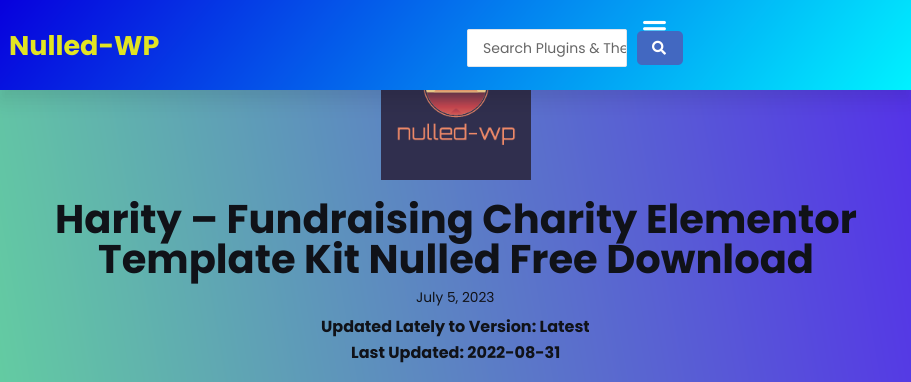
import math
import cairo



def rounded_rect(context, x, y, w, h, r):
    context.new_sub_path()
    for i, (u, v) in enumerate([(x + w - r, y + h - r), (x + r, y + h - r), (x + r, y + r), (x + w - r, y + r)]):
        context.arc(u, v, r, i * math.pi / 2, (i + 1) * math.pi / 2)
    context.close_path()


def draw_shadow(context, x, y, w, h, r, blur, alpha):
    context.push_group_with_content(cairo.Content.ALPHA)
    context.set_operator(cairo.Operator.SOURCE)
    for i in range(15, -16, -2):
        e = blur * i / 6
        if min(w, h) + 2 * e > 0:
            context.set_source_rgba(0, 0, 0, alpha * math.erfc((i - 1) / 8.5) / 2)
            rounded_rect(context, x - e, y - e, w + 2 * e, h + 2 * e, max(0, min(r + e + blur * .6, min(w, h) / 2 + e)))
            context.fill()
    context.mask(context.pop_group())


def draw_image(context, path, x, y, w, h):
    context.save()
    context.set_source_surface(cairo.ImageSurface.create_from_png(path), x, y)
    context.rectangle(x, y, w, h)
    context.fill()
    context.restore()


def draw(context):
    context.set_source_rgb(1, 1, 1)
    context.paint()
    gradient = cairo.LinearGradient(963, 293, -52, 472)
    gradient.add_color_stop_rgba(0, 84 / 255, 48 / 255, 233 / 255, 1)
    gradient.add_color_stop_rgba(1, 100 / 255, 214 / 255, 157 / 255, 1)
    context.set_source(gradient)
    context.rectangle(0, 90, 911, 292)
    context.fill()
    draw_image(context, "images/3.png", 381, 90, 150, 90)
    context.set_source_rgb(0, 0, 0)
    draw_shadow(context, 0, 10, 911, 90, 0, 10, 0.1)
    gradient = cairo.LinearGradient(166, -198, 745, 288)
    gradient.add_color_stop_rgba(0, 7 / 255, 0, 221 / 255, 1)
    gradient.add_color_stop_rgba(1, 0, 242 / 255, 1, 1)
    context.set_source(gradient)
    context.rectangle(0, 0, 911, 90)
    context.fill()
    draw_image(context, "images/1.png", 643, 20, 23, 11)
    context.set_source_rgb(1, 1, 1)
    rounded_rect(context, 467.5, 29.5, 159, 37, 1.5)
    context.fill_preserve()
    context.set_source_rgb(225 / 255, 229 / 255, 235 / 255)
    context.set_line_width(1)
    context.stroke()
    context.set_source_rgb(66 / 255, 104 / 255, 193 / 255)
    rounded_rect(context, 637, 31, 46, 34, 5)
    context.fill()
    draw_image(context, "images/2.png", 652, 40, 14, 15)
    context.select_font_face("Poppins", cairo.FontSlant.NORMAL, cairo.FontWeight.BOLD)
    context.set_font_size(27)
    context.set_source_rgb(225 / 255, 228 / 255, 35 / 255)
    context.move_to(9, 55)
    context.show_text("Nulled-WP")
    context.save()
    rounded_rect(context, 468, 30, 158, 36, 1)
    context.clip()
    context.select_font_face("Poppins")
    context.set_font_size(14)
    context.set_source_rgb(102 / 255, 102 / 255, 102 / 255)
    context.move_to(483, 53)
    context.show_text("Search Plugins & The")
    context.restore()
    context.set_font_size(40)
    context.set_source_rgb(16 / 255, 18 / 255, 24 / 255)
    context.move_to(55, 233)
    context.show_text("Harity – Fundraising Charity Elementor")
    context.move_to(98, 273)
    context.show_text("Template Kit Nulled Free Download")
    context.select_font_face("Poppins")
    context.set_font_size(13.75)
    context.move_to(416, 302)
    context.show_text("July 5, 2023")
    context.select_font_face("Poppins", cairo.FontSlant.NORMAL, cairo.FontWeight.BOLD)
    context.set_font_size(16)
    context.move_to(321, 332)
    context.show_text("Updated Lately to Version: Latest")
    context.move_to(351, 358)
    context.show_text("Last Updated: 2022-08-31")


surface = cairo.ImageSurface(cairo.Format.RGB24, 911, 382)
context = cairo.Context(surface)
options = cairo.FontOptions()
options.set_hint_metrics(cairo.HintMetrics.OFF)
options.set_hint_style(cairo.HintStyle.NONE)
context.set_font_options(options)
context.set_miter_limit(4)
draw(context)
surface.write_to_png("out.png")
